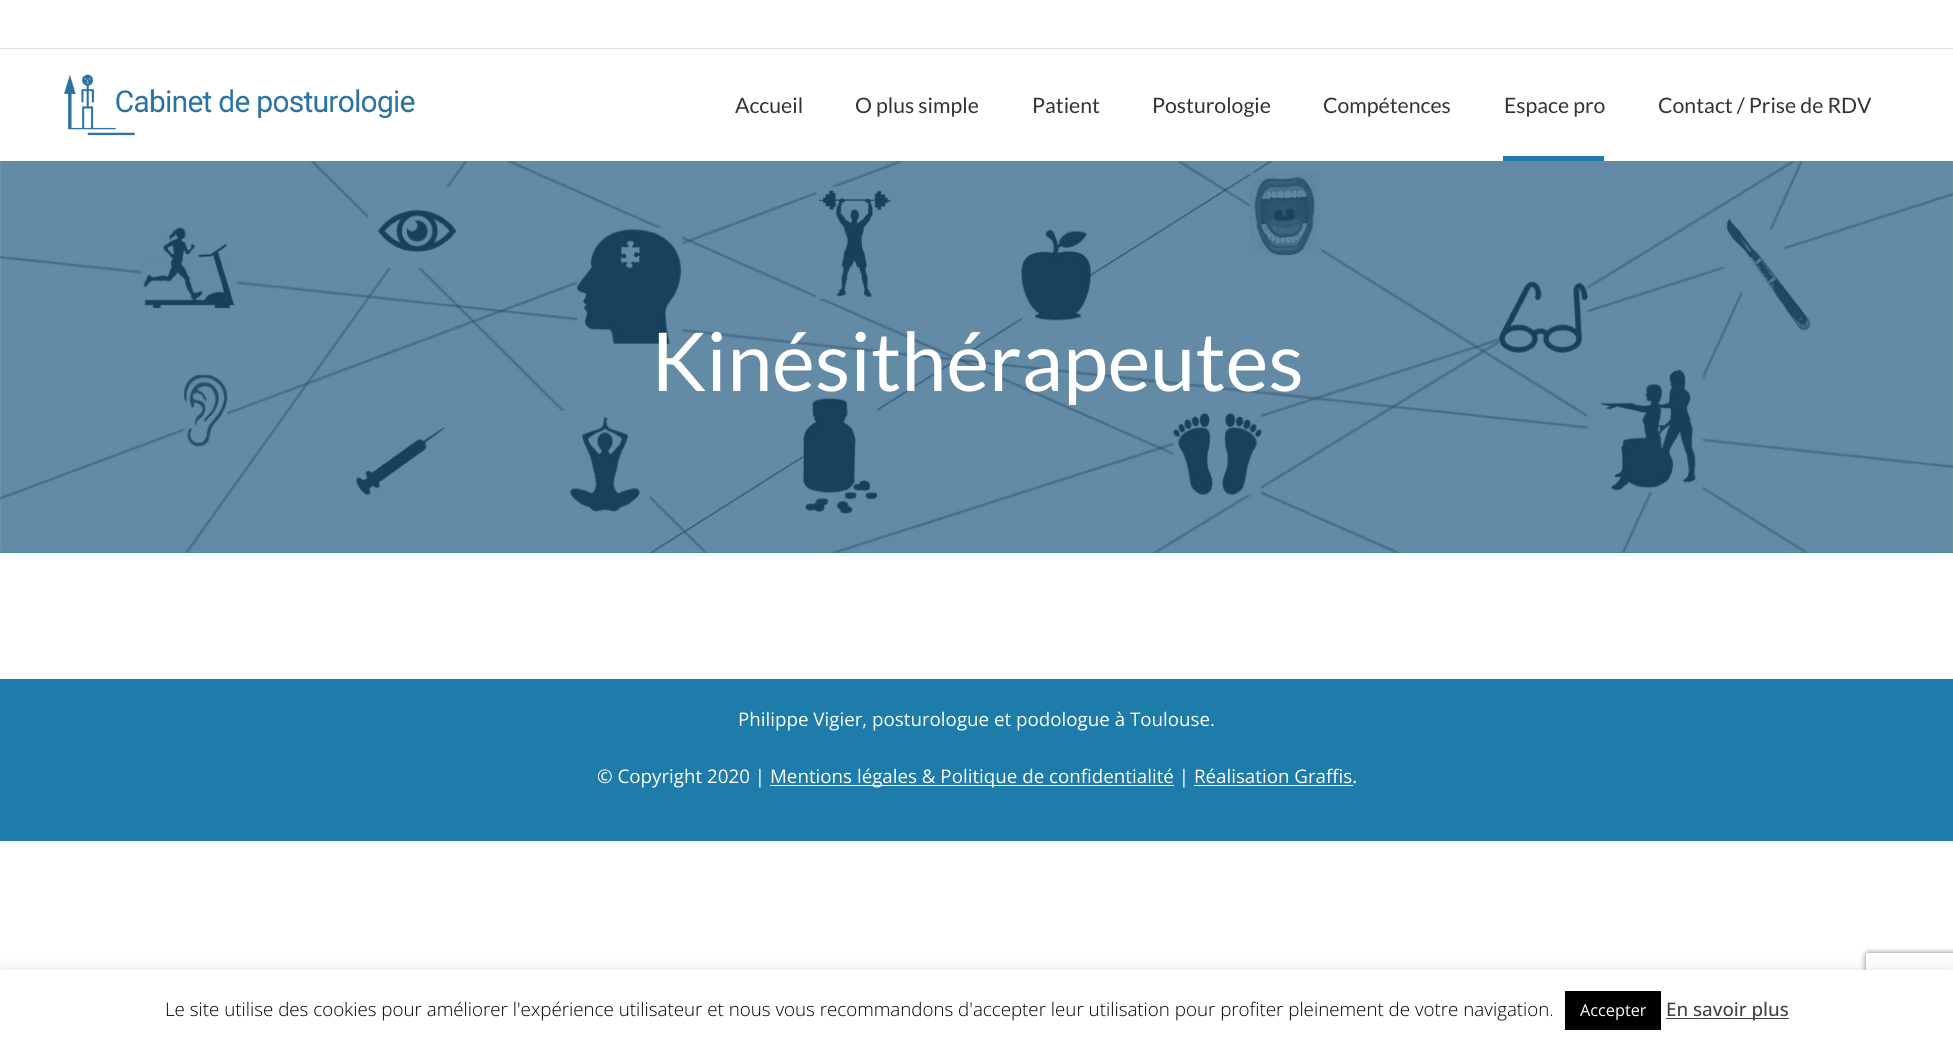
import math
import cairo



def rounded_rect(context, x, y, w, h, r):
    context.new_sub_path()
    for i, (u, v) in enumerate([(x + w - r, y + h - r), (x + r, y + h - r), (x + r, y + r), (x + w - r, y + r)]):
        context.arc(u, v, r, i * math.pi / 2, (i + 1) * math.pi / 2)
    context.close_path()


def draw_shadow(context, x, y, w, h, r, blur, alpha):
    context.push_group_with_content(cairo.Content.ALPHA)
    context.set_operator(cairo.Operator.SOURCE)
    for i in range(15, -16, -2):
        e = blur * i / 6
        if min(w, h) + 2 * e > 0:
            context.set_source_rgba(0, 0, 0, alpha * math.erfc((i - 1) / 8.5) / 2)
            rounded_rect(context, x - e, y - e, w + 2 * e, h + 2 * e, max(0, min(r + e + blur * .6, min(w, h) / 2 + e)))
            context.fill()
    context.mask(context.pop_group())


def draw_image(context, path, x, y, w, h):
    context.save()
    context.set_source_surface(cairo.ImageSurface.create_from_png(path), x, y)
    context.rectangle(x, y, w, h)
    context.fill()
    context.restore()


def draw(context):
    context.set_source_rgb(1, 1, 1)
    context.paint()
    context.set_source_rgb(224 / 255, 224 / 255, 224 / 255)
    context.rectangle(0, 48, 1953, 1)
    context.fill()
    draw_image(context, "images/1.png", 64, 74, 351, 62)
    context.set_source_rgb(30 / 255, 124 / 255, 170 / 255)
    context.rectangle(1503, 156, 101, 5)
    context.fill()
    context.rectangle(0, 161, 1953, 392)
    context.fill()
    draw_image(context, "images/2.png", 0, 161, 1953, 392)
    context.rectangle(0, 679, 1953, 162)
    context.fill()
    context.set_source_rgb(1, 1, 1)
    context.rectangle(770, 785, 404, 1)
    context.fill()
    context.rectangle(1194, 785, 159, 1)
    context.fill()
    context.set_source_rgb(172 / 255, 171 / 255, 171 / 255)
    draw_shadow(context, 0, 969, 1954, 75, 0, 6, 0.3)
    context.save()
    context.set_fill_rule(cairo.FillRule.EVEN_ODD)
    context.new_path()
    context.move_to(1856, 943)
    context.line_to(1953, 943)
    context.line_to(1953, 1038)
    context.line_to(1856, 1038)
    context.close_path()
    context.move_to(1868.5, 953)
    context.line_to(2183.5, 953)
    context.curve_to(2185, 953, 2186, 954, 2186, 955.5)
    context.line_to(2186, 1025.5)
    context.curve_to(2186, 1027, 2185, 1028, 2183.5, 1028)
    context.line_to(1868.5, 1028)
    context.curve_to(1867, 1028, 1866, 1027, 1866, 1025.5)
    context.line_to(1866, 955.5)
    context.curve_to(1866, 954, 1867, 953, 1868.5, 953)
    context.close_path()
    context.clip()
    context.set_source_rgb(128 / 255, 128 / 255, 128 / 255)
    draw_shadow(context, 1866, 953, 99, 75, 2.5, 3, 1)
    context.restore()
    context.set_source_rgb(1, 1, 1)
    context.rectangle(0, 970, 1953, 74)
    context.fill()
    context.set_source_rgb(0, 0, 0)
    context.rectangle(1565, 991, 96, 39)
    context.fill()
    context.set_source_rgb(68 / 255, 68 / 255, 68 / 255)
    context.rectangle(1666, 1018, 123, 1)
    context.fill()
    context.select_font_face("Lato")
    context.set_font_size(21.25)
    context.set_source_rgb(51 / 255, 51 / 255, 51 / 255)
    context.move_to(735, 113)
    context.show_text("Accueil")
    context.move_to(855, 113)
    context.show_text("O plus simple")
    context.move_to(1032, 113)
    context.show_text("Patient")
    context.move_to(1152, 113)
    context.show_text("Posturologie")
    context.move_to(1323, 113)
    context.show_text("Compétences")
    context.move_to(1504, 113)
    context.show_text("Espace pro")
    context.move_to(1658, 113)
    context.show_text("Contact / Prise de RDV")
    context.set_font_size(81.25)
    context.set_source_rgb(1, 1, 1)
    context.move_to(651, 391)
    context.show_text("Kinésithérapeutes")
    context.select_font_face("Open Sans")
    context.set_font_size(18.75)
    context.move_to(738, 726)
    context.show_text("Philippe Vigier, posturologue et podologue à Toulouse.")
    context.move_to(597, 783)
    context.show_text("© Copyright 2020 |")
    context.move_to(770, 783)
    context.show_text("Mentions légales & Politique de confidentialité | Réalisation Graffis.")
    context.select_font_face("Open Sans Light")
    context.set_source_rgb(0, 0, 0)
    context.move_to(165, 1016)
    context.show_text("Le site utilise des cookies pour améliorer l'expérience utilisateur et nous vous recommandons d'accepter leur utilisation pour profiter pleinement de votre navigation.")
    context.select_font_face("Open Sans")
    context.set_font_size(16.25)
    context.set_source_rgb(1, 1, 1)
    context.move_to(1580, 1016)
    context.show_text("Accepter")
    context.select_font_face("Open Sans Medium")
    context.set_font_size(18.75)
    context.set_source_rgb(68 / 255, 68 / 255, 68 / 255)
    context.move_to(1666, 1016)
    context.show_text("En savoir plus")


surface = cairo.ImageSurface(cairo.Format.RGB24, 1953, 1044)
context = cairo.Context(surface)
options = cairo.FontOptions()
options.set_hint_metrics(cairo.HintMetrics.OFF)
options.set_hint_style(cairo.HintStyle.NONE)
context.set_font_options(options)
context.set_miter_limit(4)
draw(context)
surface.write_to_png("out.png")
